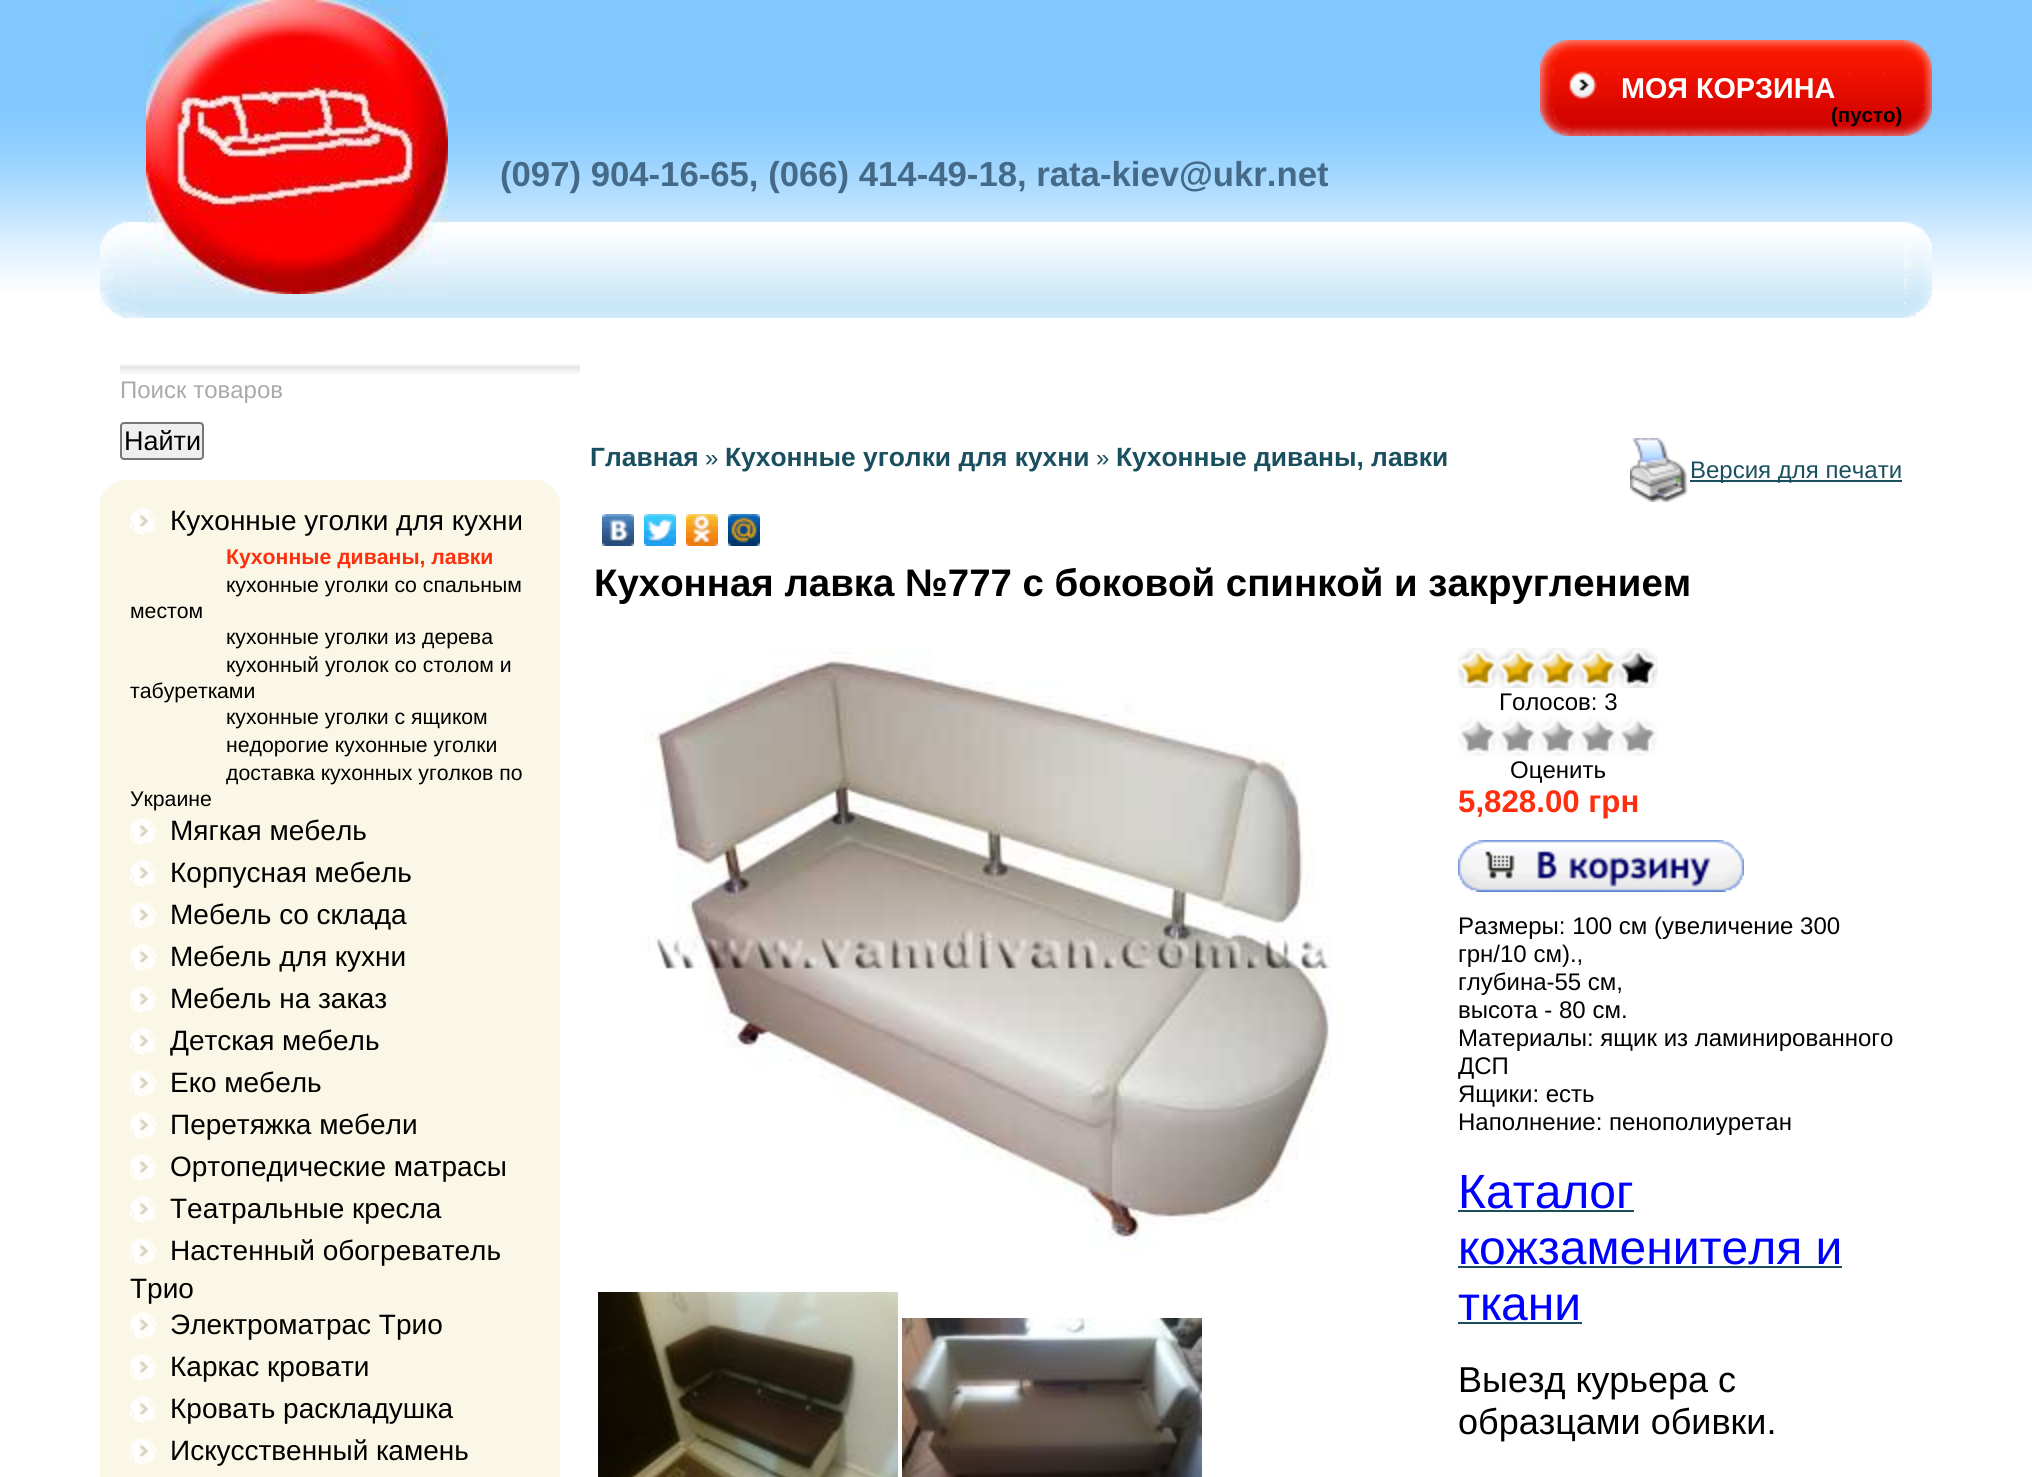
import math
import cairo



def rounded_rect(context, x, y, w, h, r):
    context.new_sub_path()
    for i, (u, v) in enumerate([(x + w - r, y + h - r), (x + r, y + h - r), (x + r, y + r), (x + w - r, y + r)]):
        context.arc(u, v, r, i * math.pi / 2, (i + 1) * math.pi / 2)
    context.close_path()


def draw_image(context, path, x, y, w, h):
    context.save()
    context.set_source_surface(cairo.ImageSurface.create_from_png(path), x, y)
    context.rectangle(x, y, w, h)
    context.fill()
    context.restore()


def draw(context):
    context.set_source_rgb(1, 1, 1)
    context.paint()
    draw_image(context, "images/1.png", 0, 0, 2032, 291)
    draw_image(context, "images/5.png", 146, 222, 1758, 96)
    draw_image(context, "images/2.png", 146, 0, 302, 294)
    draw_image(context, "images/3.png", 1540, 40, 364, 96)
    draw_image(context, "images/4.png", 1904, 40, 28, 96)
    draw_image(context, "images/6.png", 100, 222, 46, 96)
    draw_image(context, "images/7.png", 1904, 222, 28, 96)
    draw_image(context, "images/8.png", 120, 364, 460, 10)
    context.set_source_rgb(239 / 255, 239 / 255, 239 / 255)
    rounded_rect(context, 121, 423, 82, 36, 3)
    context.fill_preserve()
    context.set_source_rgb(118 / 255, 118 / 255, 118 / 255)
    context.stroke()
    context.set_source_rgb(250 / 255, 247 / 255, 230 / 255)
    context.rectangle(100, 500, 460, 977)
    context.fill()
    context.rectangle(120, 480, 420, 2)
    context.fill()
    context.set_source_rgb(252 / 255, 251 / 255, 242 / 255)
    context.rectangle(540, 480, 4, 2)
    context.fill()
    context.rectangle(116, 480, 4, 2)
    context.fill()
    context.set_source_rgb(250 / 255, 247 / 255, 230 / 255)
    context.rectangle(116, 482, 428, 2)
    context.fill()
    context.set_source_rgb(252 / 255, 251 / 255, 242 / 255)
    context.rectangle(544, 482, 4, 2)
    context.fill()
    context.rectangle(112, 482, 4, 2)
    context.fill()
    context.set_source_rgb(250 / 255, 247 / 255, 230 / 255)
    context.rectangle(112, 484, 436, 2)
    context.fill()
    context.set_source_rgb(252 / 255, 251 / 255, 242 / 255)
    context.rectangle(548, 484, 2, 2)
    context.fill()
    context.rectangle(110, 484, 2, 2)
    context.fill()
    context.set_source_rgb(250 / 255, 247 / 255, 230 / 255)
    context.rectangle(110, 486, 440, 2)
    context.fill()
    context.set_source_rgb(252 / 255, 251 / 255, 242 / 255)
    context.rectangle(550, 486, 2, 2)
    context.fill()
    context.rectangle(108, 486, 2, 2)
    context.fill()
    context.set_source_rgb(250 / 255, 247 / 255, 230 / 255)
    context.rectangle(108, 488, 444, 2)
    context.fill()
    context.set_source_rgb(252 / 255, 251 / 255, 242 / 255)
    context.rectangle(552, 488, 2, 2)
    context.fill()
    context.rectangle(106, 488, 2, 2)
    context.fill()
    context.set_source_rgb(250 / 255, 247 / 255, 230 / 255)
    context.rectangle(106, 490, 448, 2)
    context.fill()
    context.set_source_rgb(252 / 255, 251 / 255, 242 / 255)
    context.rectangle(554, 490, 2, 2)
    context.fill()
    context.rectangle(104, 490, 2, 2)
    context.fill()
    context.set_source_rgb(250 / 255, 247 / 255, 230 / 255)
    context.rectangle(104, 492, 452, 4)
    context.fill()
    context.set_source_rgb(252 / 255, 251 / 255, 242 / 255)
    context.rectangle(556, 492, 2, 4)
    context.fill()
    context.rectangle(102, 492, 2, 4)
    context.fill()
    context.set_source_rgb(250 / 255, 247 / 255, 230 / 255)
    context.rectangle(102, 496, 456, 4)
    context.fill()
    context.set_source_rgb(252 / 255, 251 / 255, 242 / 255)
    context.rectangle(558, 496, 2, 4)
    context.fill()
    context.rectangle(100, 496, 2, 4)
    context.fill()
    draw_image(context, "images/9.png", 130, 508, 26, 26)
    draw_image(context, "images/9.png", 130, 818, 26, 26)
    draw_image(context, "images/9.png", 130, 860, 26, 26)
    draw_image(context, "images/9.png", 130, 902, 26, 26)
    draw_image(context, "images/9.png", 130, 944, 26, 26)
    draw_image(context, "images/9.png", 130, 986, 26, 26)
    draw_image(context, "images/9.png", 130, 1028, 26, 26)
    draw_image(context, "images/9.png", 130, 1070, 26, 26)
    draw_image(context, "images/9.png", 130, 1112, 26, 26)
    draw_image(context, "images/9.png", 130, 1154, 26, 26)
    draw_image(context, "images/9.png", 130, 1196, 26, 26)
    draw_image(context, "images/9.png", 130, 1238, 26, 26)
    draw_image(context, "images/9.png", 130, 1312, 26, 26)
    draw_image(context, "images/9.png", 130, 1354, 26, 26)
    draw_image(context, "images/9.png", 130, 1396, 26, 26)
    draw_image(context, "images/9.png", 130, 1438, 26, 26)
    draw_image(context, "images/10.png", 1630, 438, 58, 64)
    context.set_source_rgb(26 / 255, 79 / 255, 95 / 255)
    context.rectangle(1690, 480, 212, 2)
    context.fill()
    draw_image(context, "images/11.png", 602, 514, 32, 32)
    draw_image(context, "images/12.png", 644, 514, 32, 32)
    draw_image(context, "images/13.png", 686, 514, 32, 32)
    draw_image(context, "images/14.png", 728, 514, 32, 32)
    draw_image(context, "images/15.png", 644, 648, 700, 602)
    draw_image(context, "images/16.png", 598, 1292, 300, 185)
    draw_image(context, "images/17.png", 902, 1318, 300, 159)
    draw_image(context, "images/18.png", 1458, 648, 200, 40)
    draw_image(context, "images/20.png", 1460, 653, 186, 32)
    draw_image(context, "images/19.png", 1458, 650, 160, 36)
    draw_image(context, "images/21.png", 1458, 716, 200, 40)
    draw_image(context, "images/22.png", 1461, 724, 194, 29)
    draw_image(context, "images/23.png", 1458, 840, 286, 52)
    context.rectangle(1458, 1210, 176, 2)
    context.fill()
    context.rectangle(1458, 1266, 384, 2)
    context.fill()
    context.rectangle(1458, 1322, 124, 2)
    context.fill()
    context.select_font_face("Liberation Sans", cairo.FontSlant.NORMAL, cairo.FontWeight.BOLD)
    context.set_font_size(28.75)
    context.set_source_rgb(1, 1, 1)
    context.move_to(1621, 98)
    context.show_text("МОЯ КОРЗИНА")
    context.set_font_size(20.5)
    context.set_source_rgb(0, 0, 0)
    context.move_to(1831, 122)
    context.show_text("(пусто)")
    context.set_font_size(34.7)
    context.set_source_rgb(68 / 255, 106 / 255, 136 / 255)
    context.move_to(500, 186)
    context.show_text("(097) 904-16-65, (066) 414-49-18, rata-kiev@ukr.net")
    context.select_font_face("Liberation Sans")
    context.set_font_size(24)
    context.set_source_rgb(170 / 255, 170 / 255, 170 / 255)
    context.move_to(120, 398)
    context.show_text("Поиск товаров")
    context.set_font_size(27)
    context.set_source_rgb(0, 0, 0)
    context.move_to(124, 450)
    context.show_text("Найти")
    context.set_font_size(28)
    context.move_to(170, 530)
    context.show_text("Кухонные уголки для кухни")
    context.select_font_face("Liberation Sans", cairo.FontSlant.NORMAL, cairo.FontWeight.BOLD)
    context.set_font_size(21.25)
    context.set_source_rgb(253 / 255, 47 / 255, 15 / 255)
    context.move_to(226, 564)
    context.show_text("Кухонные диваны, лавки")
    context.select_font_face("Liberation Sans")
    context.set_source_rgb(0, 0, 0)
    context.move_to(226, 592)
    context.show_text("кухонные уголки со спальным")
    context.move_to(130, 618)
    context.show_text("местом")
    context.move_to(226, 644)
    context.show_text("кухонные уголки из дерева")
    context.move_to(226, 672)
    context.show_text("кухонный уголок со столом и")
    context.move_to(130, 698)
    context.show_text("табуретками")
    context.move_to(226, 724)
    context.show_text("кухонные уголки с ящиком")
    context.move_to(226, 752)
    context.show_text("недорогие кухонные уголки")
    context.move_to(226, 780)
    context.show_text("доставка кухонных уголков по")
    context.move_to(130, 806)
    context.show_text("Украине")
    context.set_font_size(28)
    context.move_to(170, 840)
    context.show_text("Мягкая мебель")
    context.move_to(170, 882)
    context.show_text("Корпусная мебель")
    context.move_to(170, 924)
    context.show_text("Мебель со склада")
    context.move_to(170, 966)
    context.show_text("Мебель для кухни")
    context.move_to(170, 1008)
    context.show_text("Мебель на заказ")
    context.move_to(170, 1050)
    context.show_text("Детская мебель")
    context.move_to(170, 1092)
    context.show_text("Еко мебель")
    context.move_to(170, 1134)
    context.show_text("Перетяжка мебели")
    context.move_to(170, 1176)
    context.show_text("Ортопедические матрасы")
    context.move_to(170, 1218)
    context.show_text("Театральные кресла")
    context.move_to(170, 1260)
    context.show_text("Настенный обогреватель")
    context.move_to(130, 1298)
    context.show_text("Трио")
    context.move_to(170, 1334)
    context.show_text("Электроматрас Трио")
    context.move_to(170, 1376)
    context.show_text("Каркас кровати")
    context.move_to(170, 1418)
    context.show_text("Кровать раскладушка")
    context.move_to(170, 1460)
    context.show_text("Искусственный камень")
    context.select_font_face("Liberation Sans", cairo.FontSlant.NORMAL, cairo.FontWeight.BOLD)
    context.set_font_size(26.4)
    context.set_source_rgb(26 / 255, 79 / 255, 95 / 255)
    context.move_to(590, 466)
    context.show_text("Главная")
    context.select_font_face("Liberation Sans")
    context.set_font_size(24)
    context.move_to(705, 466)
    context.show_text("»")
    context.select_font_face("Liberation Sans", cairo.FontSlant.NORMAL, cairo.FontWeight.BOLD)
    context.set_font_size(26.4)
    context.move_to(725, 466)
    context.show_text("Кухонные уголки для кухни")
    context.select_font_face("Liberation Sans")
    context.set_font_size(24)
    context.move_to(1096, 466)
    context.show_text("»")
    context.select_font_face("Liberation Sans", cairo.FontSlant.NORMAL, cairo.FontWeight.BOLD)
    context.set_font_size(26.4)
    context.move_to(1116, 466)
    context.show_text("Кухонные диваны, лавки")
    context.select_font_face("Liberation Sans")
    context.set_font_size(24)
    context.move_to(1690, 478)
    context.show_text("Версия для печати")
    context.select_font_face("Liberation Sans", cairo.FontSlant.NORMAL, cairo.FontWeight.BOLD)
    context.set_font_size(38.4)
    context.set_source_rgb(0, 0, 0)
    context.move_to(594, 596)
    context.show_text("Кухонная лавка №777 с боковой спинкой и закруглением")
    context.select_font_face("Liberation Sans")
    context.set_font_size(24)
    context.move_to(1499, 710)
    context.show_text("Голосов: 3")
    context.move_to(1510, 778)
    context.show_text("Оценить")
    context.select_font_face("Liberation Sans", cairo.FontSlant.NORMAL, cairo.FontWeight.BOLD)
    context.set_font_size(31.25)
    context.set_source_rgb(253 / 255, 47 / 255, 15 / 255)
    context.move_to(1458, 812)
    context.show_text("5,828.00 грн")
    context.select_font_face("Liberation Sans")
    context.set_font_size(24)
    context.set_source_rgb(0, 0, 0)
    context.move_to(1458, 934)
    context.show_text("Размеры: 100 см (увеличение 300")
    context.move_to(1458, 962)
    context.show_text("грн/10 см).,")
    context.move_to(1458, 990)
    context.show_text("глубина-55 см,")
    context.move_to(1458, 1018)
    context.show_text("высота - 80 см.")
    context.move_to(1458, 1046)
    context.show_text("Материалы: ящик из ламинированного")
    context.move_to(1458, 1074)
    context.show_text("ДСП")
    context.move_to(1458, 1102)
    context.show_text("Ящики: есть")
    context.move_to(1458, 1130)
    context.show_text("Наполнение: пенополиуретан")
    context.set_font_size(48)
    context.set_source_rgb(0, 0, 1)
    context.move_to(1458, 1208)
    context.show_text("Каталог")
    context.move_to(1458, 1264)
    context.show_text("кожзаменителя и")
    context.move_to(1458, 1320)
    context.show_text("ткани")
    context.set_font_size(36)
    context.set_source_rgb(0, 0, 0)
    context.move_to(1458, 1392)
    context.show_text("Выезд курьера с")
    context.move_to(1458, 1434)
    context.show_text("образцами обивки.")


surface = cairo.ImageSurface(cairo.Format.RGB24, 2032, 1477)
context = cairo.Context(surface)
options = cairo.FontOptions()
options.set_hint_metrics(cairo.HintMetrics.OFF)
options.set_hint_style(cairo.HintStyle.NONE)
context.set_font_options(options)
context.set_miter_limit(4)
draw(context)
surface.write_to_png("out.png")
